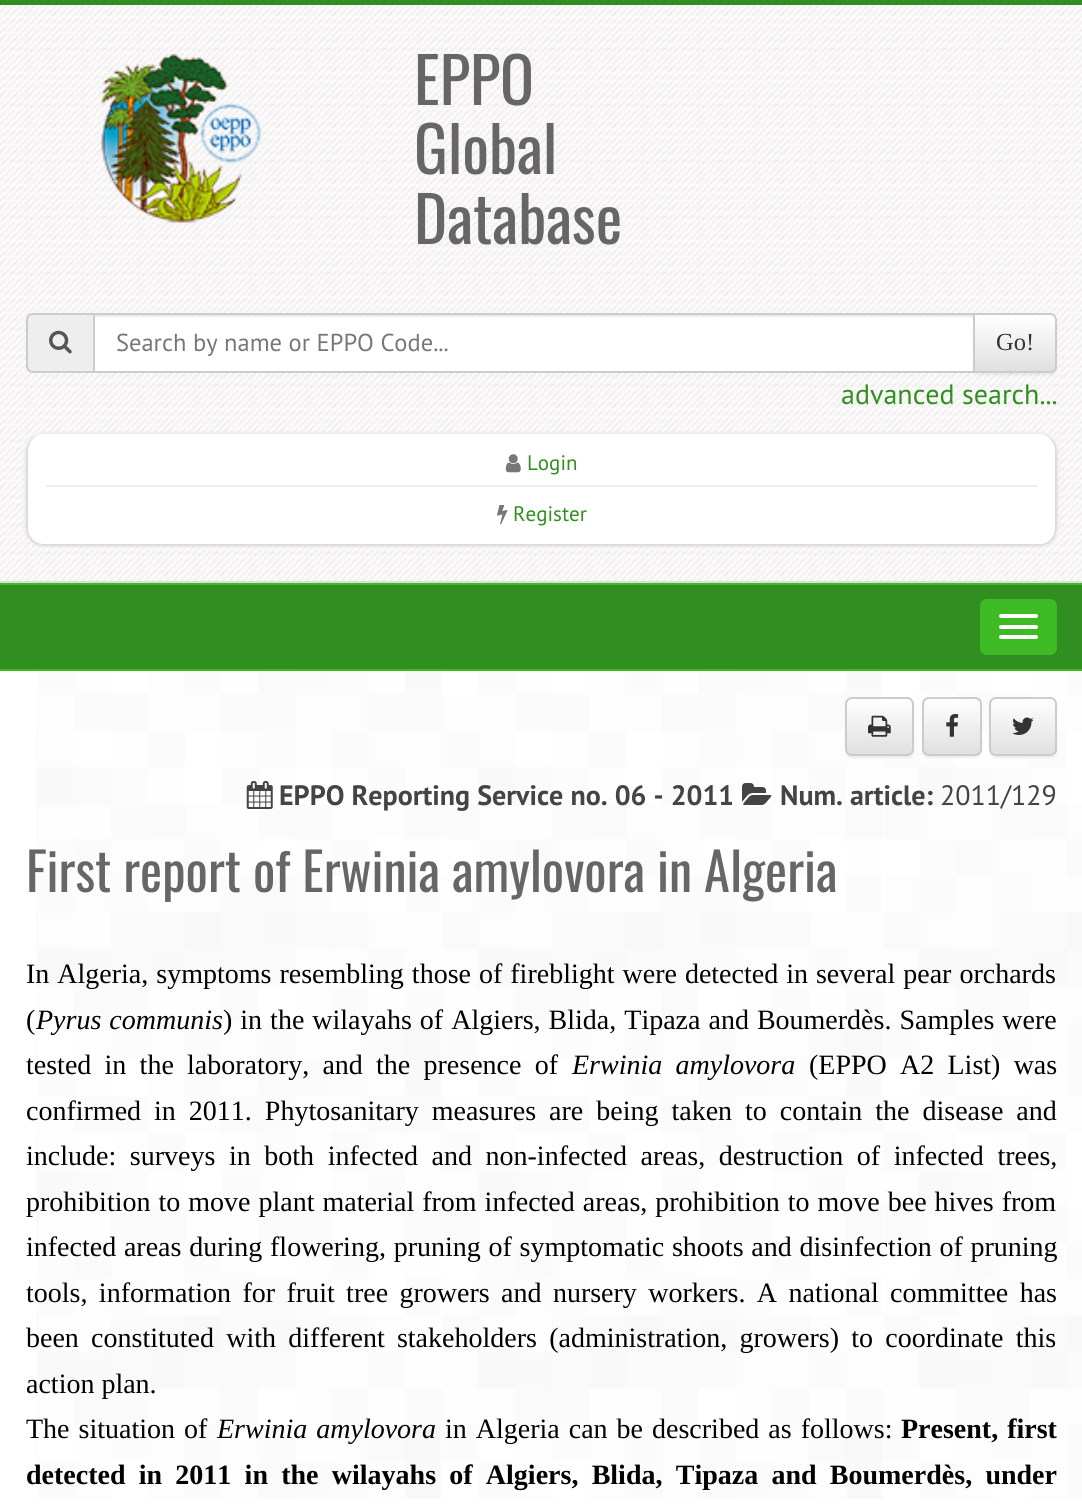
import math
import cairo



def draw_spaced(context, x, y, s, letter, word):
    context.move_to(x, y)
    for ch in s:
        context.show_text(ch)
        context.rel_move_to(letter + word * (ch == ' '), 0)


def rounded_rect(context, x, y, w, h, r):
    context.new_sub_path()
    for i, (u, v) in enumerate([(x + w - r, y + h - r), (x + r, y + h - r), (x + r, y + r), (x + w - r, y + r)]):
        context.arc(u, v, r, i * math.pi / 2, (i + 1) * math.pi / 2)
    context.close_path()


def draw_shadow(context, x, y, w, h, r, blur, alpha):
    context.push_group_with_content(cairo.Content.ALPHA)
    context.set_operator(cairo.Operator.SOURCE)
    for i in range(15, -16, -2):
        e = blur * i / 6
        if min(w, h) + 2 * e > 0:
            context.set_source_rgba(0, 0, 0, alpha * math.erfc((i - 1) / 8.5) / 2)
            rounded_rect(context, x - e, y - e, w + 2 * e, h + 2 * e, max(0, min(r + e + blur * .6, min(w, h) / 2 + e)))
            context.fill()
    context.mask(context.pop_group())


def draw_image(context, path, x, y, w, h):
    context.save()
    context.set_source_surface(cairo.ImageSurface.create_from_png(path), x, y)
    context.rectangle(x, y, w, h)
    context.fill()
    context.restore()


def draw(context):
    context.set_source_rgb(1, 1, 1)
    context.paint()
    draw_image(context, "images/1.png", 36, 671, 1046, 828)
    context.set_source_rgb(49 / 255, 142 / 255, 32 / 255)
    context.rectangle(0, 0, 1082, 5)
    context.fill()
    draw_image(context, "images/2.png", 0, 5, 1082, 576)
    context.set_source_rgb(221 / 255, 221 / 255, 221 / 255)
    context.rectangle(0, 581, 1082, 2)
    context.fill()
    draw_image(context, "images/3.png", 101, 53, 161, 170)
    context.set_source_rgb(238 / 255, 238 / 255, 238 / 255)
    context.new_path()
    context.move_to(33, 313)
    context.line_to(93, 313)
    context.line_to(93, 373)
    context.line_to(33, 373)
    context.curve_to(29, 373, 26, 370, 26, 366)
    context.line_to(26, 320)
    context.curve_to(26, 316, 29, 313, 33, 313)
    context.close_path()
    context.fill()
    context.set_source_rgb(204 / 255, 204 / 255, 204 / 255)
    context.set_fill_rule(cairo.FillRule.EVEN_ODD)
    context.new_path()
    context.move_to(33, 313)
    context.line_to(93, 313)
    context.line_to(93, 373)
    context.line_to(33, 373)
    context.curve_to(29, 373, 26, 370, 26, 366)
    context.line_to(26, 320)
    context.curve_to(26, 316, 29, 313, 33, 313)
    context.close_path()
    context.move_to(33, 315)
    context.line_to(93, 315)
    context.line_to(93, 371)
    context.line_to(33, 371)
    context.curve_to(30, 371, 28, 369, 28, 366)
    context.line_to(28, 320)
    context.curve_to(28, 317, 30, 315, 33, 315)
    context.close_path()
    context.fill()
    draw_image(context, "images/4.png", 49, 330, 23, 24)
    context.set_source_rgb(0, 0, 0)
    draw_shadow(context, 973, 315, 84, 60, 7, 1, 0.07)
    context.set_source_rgb(1, 1, 1)
    context.rectangle(95, 317, 878, 54)
    context.fill()
    context.set_source_rgb(236 / 255, 236 / 255, 236 / 255)
    context.rectangle(95, 315, 878, 2)
    context.fill()
    context.save()
    context.set_fill_rule(cairo.FillRule.WINDING)
    context.new_path()
    context.move_to(973, 313)
    context.line_to(1050, 313)
    context.curve_to(1054, 313, 1057, 316, 1057, 320)
    context.line_to(1057, 366)
    context.curve_to(1057, 370, 1054, 373, 1050, 373)
    context.line_to(973, 373)
    context.close_path()
    context.clip()
    gradient = cairo.LinearGradient(1015, 315, 1015, 371)
    gradient.add_color_stop_rgba(0, 1, 1, 1, 1)
    gradient.add_color_stop_rgba(1, 224 / 255, 224 / 255, 224 / 255, 1)
    context.set_source(gradient)
    context.rectangle(975, 315, 82, 56)
    context.fill()
    context.restore()
    context.new_path()
    context.move_to(974, 314)
    context.line_to(1050, 314)
    context.curve_to(1053.5, 314, 1056, 316.5, 1056, 320)
    context.line_to(1056, 366)
    context.curve_to(1056, 369.5, 1053.5, 372, 1050, 372)
    context.line_to(974, 372)
    context.close_path()
    context.set_source_rgb(204 / 255, 204 / 255, 204 / 255)
    context.stroke()
    context.rectangle(94, 314, 880, 58)
    context.stroke()
    context.set_source_rgb(221 / 255, 221 / 255, 221 / 255)
    draw_shadow(context, 26, 434, 1031, 112, 18, 2, 1)
    context.set_source_rgb(1, 1, 1)
    rounded_rect(context, 26, 434, 1031, 112, 18)
    context.fill()
    context.set_source_rgb(221 / 255, 221 / 255, 221 / 255)
    context.new_path()
    context.move_to(44, 434)
    context.line_to(1040, 434)
    context.curve_to(1049, 434, 1057, 442, 1057, 452)
    context.line_to(1057, 528)
    context.curve_to(1057, 538, 1049, 546, 1040, 546)
    context.line_to(44, 546)
    context.curve_to(34, 546, 26, 538, 26, 528)
    context.line_to(26, 452)
    context.curve_to(26, 442, 34, 434, 44, 434)
    context.close_path()
    context.move_to(44, 434)
    context.line_to(1040, 434)
    context.curve_to(1048, 434, 1055, 442, 1055, 452)
    context.line_to(1055, 528)
    context.curve_to(1055, 537, 1048, 544, 1040, 544)
    context.line_to(44, 544)
    context.curve_to(35, 544, 28, 537, 28, 528)
    context.line_to(28, 452)
    context.curve_to(28, 442, 35, 434, 44, 434)
    context.close_path()
    context.fill()
    draw_image(context, "images/5.png", 505, 454, 16, 19)
    context.set_source_rgb(238 / 255, 238 / 255, 238 / 255)
    context.rectangle(46, 485, 992, 2)
    context.fill()
    draw_image(context, "images/6.png", 497, 505, 11, 20)
    context.set_source_rgb(49 / 255, 142 / 255, 32 / 255)
    context.rectangle(0, 585, 1082, 84)
    context.fill()
    context.set_source_rgb(62 / 255, 186 / 255, 37 / 255)
    context.rectangle(0, 583, 1082, 2)
    context.fill()
    context.rectangle(0, 669, 1082, 2)
    context.fill()
    rounded_rect(context, 980, 599, 77, 56, 7)
    context.fill()
    context.set_source_rgb(1, 1, 1)
    rounded_rect(context, 999, 614, 39, 4, 2)
    context.fill()
    rounded_rect(context, 999, 625, 39, 4, 2)
    context.fill()
    rounded_rect(context, 999, 635, 39, 4, 2)
    context.fill()
    context.set_source_rgb(0, 0, 0)
    draw_shadow(context, 845, 698, 69, 60, 7, 1, 0.07)
    context.save()
    context.set_fill_rule(cairo.FillRule.WINDING)
    rounded_rect(context, 845, 697, 69, 59, 7)
    context.clip()
    gradient = cairo.LinearGradient(879, 698, 879, 754)
    gradient.add_color_stop_rgba(0, 1, 1, 1, 1)
    gradient.add_color_stop_rgba(1, 224 / 255, 224 / 255, 224 / 255, 1)
    context.set_source(gradient)
    context.rectangle(845, 698, 69, 56)
    context.fill()
    context.restore()
    rounded_rect(context, 846, 698, 67, 57, 6)
    context.set_source_rgb(204 / 255, 204 / 255, 204 / 255)
    context.stroke()
    draw_image(context, "images/7.png", 868, 715, 23, 22)
    context.set_source_rgb(0, 0, 0)
    draw_shadow(context, 922, 698, 60, 60, 7, 1, 0.07)
    context.save()
    context.set_fill_rule(cairo.FillRule.WINDING)
    rounded_rect(context, 922, 697, 60, 59, 7)
    context.clip()
    gradient = cairo.LinearGradient(952, 698, 952, 754)
    gradient.add_color_stop_rgba(0, 1, 1, 1, 1)
    gradient.add_color_stop_rgba(1, 224 / 255, 224 / 255, 224 / 255, 1)
    context.set_source(gradient)
    context.rectangle(922, 698, 60, 56)
    context.fill()
    context.restore()
    rounded_rect(context, 923, 698, 58, 57, 6)
    context.set_source_rgb(204 / 255, 204 / 255, 204 / 255)
    context.stroke()
    draw_image(context, "images/8.png", 946, 714, 13, 23)
    context.set_source_rgb(0, 0, 0)
    draw_shadow(context, 989, 698, 68, 60, 7, 1, 0.07)
    context.save()
    context.set_fill_rule(cairo.FillRule.WINDING)
    rounded_rect(context, 989, 697, 68, 59, 7)
    context.clip()
    gradient = cairo.LinearGradient(1023, 698, 1023, 754)
    gradient.add_color_stop_rgba(0, 1, 1, 1, 1)
    gradient.add_color_stop_rgba(1, 224 / 255, 224 / 255, 224 / 255, 1)
    context.set_source(gradient)
    context.rectangle(989, 698, 68, 56)
    context.fill()
    context.restore()
    rounded_rect(context, 990, 698, 66, 57, 6)
    context.set_source_rgb(204 / 255, 204 / 255, 204 / 255)
    context.stroke()
    draw_image(context, "images/9.png", 1012, 717, 22, 18)
    draw_image(context, "images/10.png", 246, 781, 27, 28)
    draw_image(context, "images/11.png", 742, 783, 30, 22)
    context.select_font_face("Oswald")
    context.set_font_size(63)
    context.set_source_rgb(102 / 255, 102 / 255, 102 / 255)
    context.move_to(414, 105)
    context.show_text("EPPO")
    context.move_to(414, 174)
    context.show_text("Global")
    context.move_to(414, 244)
    context.show_text("Database")
    context.select_font_face("PT Sans")
    context.set_font_size(24.5)
    context.set_source_rgb(119 / 255, 119 / 255, 119 / 255)
    context.move_to(116, 351)
    context.show_text("Search by name or EPPO Code...")
    context.select_font_face("Liberation Serif")
    context.set_source_rgb(51 / 255, 51 / 255, 51 / 255)
    context.move_to(996, 350)
    context.show_text("Go!")
    context.select_font_face("PT Sans")
    context.set_font_size(28)
    context.set_source_rgb(49 / 255, 142 / 255, 32 / 255)
    context.move_to(841, 404)
    context.show_text("advanced search...")
    context.set_font_size(21)
    context.move_to(527, 470)
    context.show_text("Login")
    context.move_to(513, 521)
    context.show_text("Register")
    context.select_font_face("PT Sans", cairo.FontSlant.NORMAL, cairo.FontWeight.BOLD)
    context.set_font_size(28)
    context.set_source_rgb(68 / 255, 68 / 255, 68 / 255)
    context.move_to(279, 805)
    context.show_text("EPPO Reporting Service no. 06 - 2011")
    context.move_to(780, 805)
    context.show_text("Num. article:")
    context.select_font_face("PT Sans")
    context.move_to(940, 805)
    context.show_text("2011/129")
    context.select_font_face("Oswald")
    context.set_font_size(52.5)
    context.set_source_rgb(102 / 255, 102 / 255, 102 / 255)
    context.move_to(26, 892)
    context.show_text("First report of Erwinia amylovora in Algeria")
    context.select_font_face("Liberation Serif")
    context.set_font_size(28)
    context.set_source_rgb(0, 0, 0)
    draw_spaced(context, 26, 983, "In Algeria, symptoms resembling those of fireblight were detected in several pear orchards", 0, 1)
    context.move_to(26, 1029)
    context.show_text("(")
    context.select_font_face("Liberation Serif", cairo.FontSlant.ITALIC)
    draw_spaced(context, 36, 1029, "Pyrus communis", 0, 1)
    context.select_font_face("Liberation Serif")
    draw_spaced(context, 223, 1029, ") in the wilayahs of Algiers, Blida, Tipaza and Boumerdès. Samples were", 0, 1)
    draw_spaced(context, 26, 1074, "tested in the laboratory, and the presence of", 0, 6.25)
    context.select_font_face("Liberation Serif", cairo.FontSlant.ITALIC)
    draw_spaced(context, 572, 1074, "Erwinia amylovora", 0, 6.25)
    context.select_font_face("Liberation Serif")
    draw_spaced(context, 809, 1074, "(EPPO A2 List) was", 0, 6.25)
    draw_spaced(context, 26, 1120, "confirmed in 2011. Phytosanitary measures are being taken to contain the disease and", 0, 6)
    draw_spaced(context, 26, 1165, "include: surveys in both infected and non-infected areas, destruction of infected trees,", 0, 6.6)
    draw_spaced(context, 26, 1211, "prohibition to move plant material from infected areas, prohibition to move bee hives from", 0, 1)
    draw_spaced(context, 26, 1256, "infected areas during flowering, pruning of symptomatic shoots and disinfection of pruning", 0, 0.75)
    draw_spaced(context, 26, 1302, "tools, information for fruit tree growers and nursery workers. A national committee has", 0, 4.4)
    draw_spaced(context, 26, 1347, "been constituted with different stakeholders (administration, growers) to coordinate this", 0, 5.25)
    context.move_to(26, 1393)
    context.show_text("action plan.")
    draw_spaced(context, 26, 1438, "The situation of", 0, 2)
    context.select_font_face("Liberation Serif", cairo.FontSlant.ITALIC)
    draw_spaced(context, 217, 1438, "Erwinia amylovora", 0, 2)
    context.select_font_face("Liberation Serif")
    draw_spaced(context, 445, 1438, "in Algeria can be described as follows:", 0, 2)
    context.select_font_face("Liberation Serif", cairo.FontSlant.NORMAL, cairo.FontWeight.BOLD)
    draw_spaced(context, 901, 1438, "Present, first", 0, 2)
    draw_spaced(context, 26, 1484, "detected in 2011 in the wilayahs of Algiers, Blida, Tipaza and Boumerdès, under", 0, 6.25)


surface = cairo.ImageSurface(cairo.Format.RGB24, 1082, 1506)
context = cairo.Context(surface)
options = cairo.FontOptions()
options.set_hint_metrics(cairo.HintMetrics.OFF)
options.set_hint_style(cairo.HintStyle.NONE)
context.set_font_options(options)
context.set_miter_limit(4)
draw(context)
surface.write_to_png("out.png")
